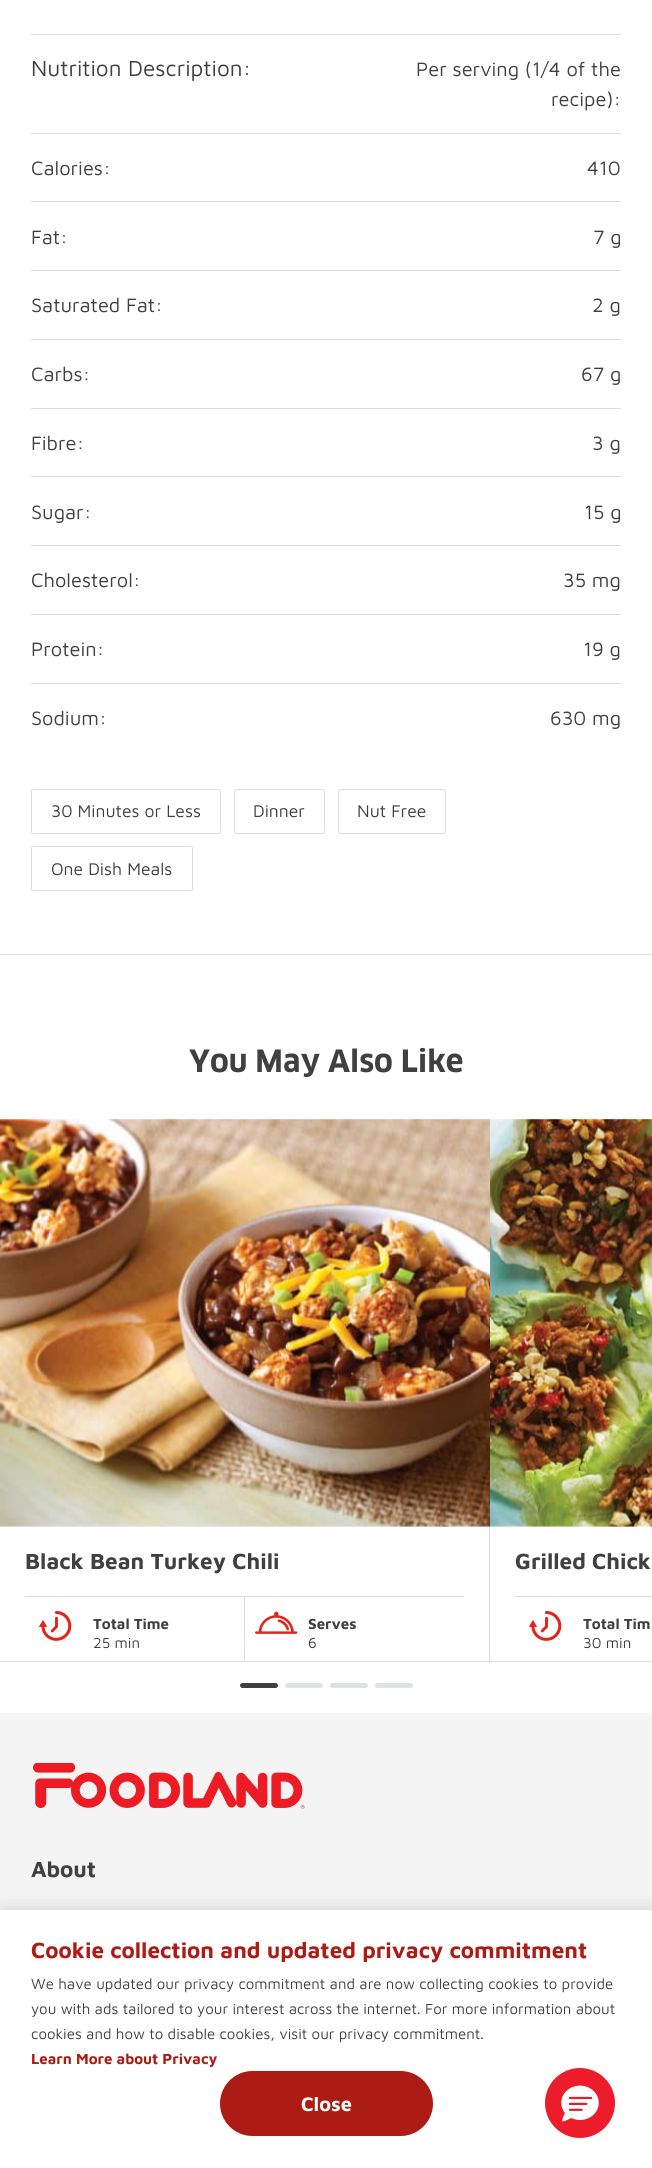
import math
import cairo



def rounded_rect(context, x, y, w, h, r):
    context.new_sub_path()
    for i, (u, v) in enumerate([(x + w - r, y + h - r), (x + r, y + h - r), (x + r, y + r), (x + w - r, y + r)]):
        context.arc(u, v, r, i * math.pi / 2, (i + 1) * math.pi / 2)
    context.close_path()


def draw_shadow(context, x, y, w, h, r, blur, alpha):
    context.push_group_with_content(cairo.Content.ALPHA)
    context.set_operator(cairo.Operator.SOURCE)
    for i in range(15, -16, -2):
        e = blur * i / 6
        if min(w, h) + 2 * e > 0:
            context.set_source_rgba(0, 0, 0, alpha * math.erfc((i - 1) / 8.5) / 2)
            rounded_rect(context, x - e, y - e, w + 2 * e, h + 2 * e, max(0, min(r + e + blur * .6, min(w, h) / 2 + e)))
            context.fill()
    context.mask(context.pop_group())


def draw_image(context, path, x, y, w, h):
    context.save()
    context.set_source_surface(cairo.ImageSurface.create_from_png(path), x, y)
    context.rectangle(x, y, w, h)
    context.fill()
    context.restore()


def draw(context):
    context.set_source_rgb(1, 1, 1)
    context.paint()
    context.set_source_rgb(221 / 255, 221 / 255, 221 / 255)
    context.rectangle(31, 34, 590, 1)
    context.fill()
    context.rectangle(31, 133, 590, 1)
    context.fill()
    context.rectangle(31, 201, 590, 1)
    context.fill()
    context.rectangle(31, 270, 590, 1)
    context.fill()
    context.rectangle(31, 339, 590, 1)
    context.fill()
    context.rectangle(31, 408, 590, 1)
    context.fill()
    context.rectangle(31, 476, 590, 1)
    context.fill()
    context.rectangle(31, 545, 590, 1)
    context.fill()
    context.rectangle(31, 614, 590, 1)
    context.fill()
    context.rectangle(31, 683, 590, 1)
    context.fill()
    rounded_rect(context, 31.5, 789.5, 189, 44, 2)
    context.set_line_width(1)
    context.stroke()
    rounded_rect(context, 234.5, 789.5, 90, 44, 2)
    context.stroke()
    rounded_rect(context, 338.5, 789.5, 107, 44, 2)
    context.stroke()
    rounded_rect(context, 31.5, 846.5, 161, 44, 2)
    context.stroke()
    context.rectangle(0, 954, 652, 1)
    context.fill()
    context.rectangle(489, 1526, 1, 137)
    context.fill()
    draw_image(context, "images/1.png", 0, 1119, 490, 408)
    context.rectangle(0, 1661, 652, 1)
    context.fill()
    context.rectangle(25, 1596, 439, 1)
    context.fill()
    context.rectangle(244, 1596, 1, 65)
    context.fill()
    draw_image(context, "images/2.png", 38, 1610, 34, 31)
    draw_image(context, "images/3.png", 255, 1611, 43, 23)
    draw_image(context, "images/4.png", 490, 1119, 162, 408)
    context.rectangle(515, 1596, 137, 1)
    context.fill()
    draw_image(context, "images/2.png", 528, 1610, 34, 31)
    context.set_source_rgb(64 / 255, 64 / 255, 64 / 255)
    rounded_rect(context, 240, 1683, 38, 5, 2.5)
    context.fill()
    context.set_source_rgb(222 / 255, 226 / 255, 230 / 255)
    rounded_rect(context, 285, 1683, 38, 5, 2.5)
    context.fill()
    rounded_rect(context, 330, 1683, 38, 5, 2.5)
    context.fill()
    rounded_rect(context, 375, 1683, 38, 5, 2.5)
    context.fill()
    context.set_source_rgb(244 / 255, 244 / 255, 244 / 255)
    context.rectangle(0, 1713, 652, 197)
    context.fill()
    draw_image(context, "images/5.png", 33, 1763, 272, 46)
    context.set_source_rgb(0, 0, 0)
    draw_shadow(context, 3, 1910, 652, 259, 0, 9.5, 0.15)
    context.set_source_rgb(1, 1, 1)
    context.rectangle(0, 1910, 652, 258)
    context.fill()
    context.set_source_rgb(173 / 255, 28 / 255, 20 / 255)
    rounded_rect(context, 221.5, 2072.5, 210, 62, 31)
    context.fill_preserve()
    context.set_line_width(3)
    context.stroke()
    context.set_source_rgb(237 / 255, 28 / 255, 43 / 255)
    context.arc(580, 2103, 35, 0, 2 * math.pi)
    context.fill()
    draw_image(context, "images/6.png", 561, 2085, 38, 37)
    context.select_font_face("Maven Pro")
    context.set_font_size(22.5)
    context.set_source_rgb(64 / 255, 64 / 255, 64 / 255)
    context.move_to(31, 76)
    context.show_text("Nutrition Description:")
    context.set_font_size(20)
    context.move_to(416, 76)
    context.show_text("Per serving (1/4 of the")
    context.move_to(551, 106)
    context.show_text("recipe):")
    context.move_to(31, 175)
    context.show_text("Calories:")
    context.move_to(587, 175)
    context.show_text("410")
    context.move_to(31, 244)
    context.show_text("Fat:")
    context.move_to(593, 244)
    context.show_text("7 g")
    context.move_to(31, 312)
    context.show_text("Saturated Fat:")
    context.move_to(592, 312)
    context.show_text("2 g")
    context.move_to(31, 381)
    context.show_text("Carbs:")
    context.move_to(581, 381)
    context.show_text("67 g")
    context.move_to(31, 450)
    context.show_text("Fibre:")
    context.move_to(592, 450)
    context.show_text("3 g")
    context.move_to(31, 519)
    context.show_text("Sugar:")
    context.move_to(584, 519)
    context.show_text("15 g")
    context.move_to(31, 587)
    context.show_text("Cholesterol:")
    context.move_to(563, 587)
    context.show_text("35 mg")
    context.move_to(31, 656)
    context.show_text("Protein:")
    context.move_to(583, 656)
    context.show_text("19 g")
    context.move_to(31, 725)
    context.show_text("Sodium:")
    context.move_to(550, 725)
    context.show_text("630 mg")
    context.set_font_size(17.5)
    context.move_to(51, 817)
    context.show_text("30 Minutes or Less")
    context.move_to(253, 817)
    context.show_text("Dinner")
    context.move_to(357, 817)
    context.show_text("Nut Free")
    context.move_to(51, 875)
    context.show_text("One Dish Meals")
    context.select_font_face("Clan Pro", cairo.FontSlant.NORMAL, cairo.FontWeight.BOLD)
    context.set_font_size(30)
    context.move_to(189, 1072)
    context.show_text("You May Also Like")
    context.select_font_face("Maven Pro", cairo.FontSlant.NORMAL, cairo.FontWeight.BOLD)
    context.set_font_size(22.5)
    context.move_to(25, 1569)
    context.show_text("Black Bean Turkey Chili")
    context.set_font_size(15)
    context.move_to(93, 1629)
    context.show_text("Total Time")
    context.select_font_face("Maven Pro")
    context.move_to(93, 1648)
    context.show_text("25 min")
    context.select_font_face("Maven Pro", cairo.FontSlant.NORMAL, cairo.FontWeight.BOLD)
    context.move_to(308, 1629)
    context.show_text("Serves")
    context.select_font_face("Maven Pro")
    context.move_to(308, 1648)
    context.show_text("6")
    context.select_font_face("Maven Pro", cairo.FontSlant.NORMAL, cairo.FontWeight.BOLD)
    context.set_font_size(22.5)
    context.move_to(515, 1569)
    context.show_text("Grilled Chick")
    context.set_font_size(15)
    context.move_to(583, 1629)
    context.show_text("Total Tim")
    context.select_font_face("Maven Pro")
    context.move_to(583, 1648)
    context.show_text("30 min")
    context.select_font_face("Maven Pro", cairo.FontSlant.NORMAL, cairo.FontWeight.BOLD)
    context.set_font_size(22.5)
    context.move_to(31, 1877)
    context.show_text("About")
    context.set_source_rgb(173 / 255, 28 / 255, 20 / 255)
    context.move_to(31, 1958)
    context.show_text("Cookie collection and updated privacy commitment")
    context.select_font_face("Maven Pro")
    context.set_font_size(15)
    context.set_source_rgb(64 / 255, 64 / 255, 64 / 255)
    context.move_to(31, 1989)
    context.show_text("We have updated our privacy commitment and are now collecting cookies to provide")
    context.move_to(31, 2014)
    context.show_text("you with ads tailored to your interest across the internet. For more information about")
    context.move_to(31, 2039)
    context.show_text("cookies and how to disable cookies, visit our privacy commitment.")
    context.select_font_face("Maven Pro", cairo.FontSlant.NORMAL, cairo.FontWeight.BOLD)
    context.set_source_rgb(173 / 255, 28 / 255, 20 / 255)
    context.move_to(31, 2064)
    context.show_text("Learn More about Privacy")
    context.set_font_size(20)
    context.set_source_rgb(1, 1, 1)
    context.move_to(301, 2111)
    context.show_text("Close")


surface = cairo.ImageSurface(cairo.Format.RGB24, 652, 2168)
context = cairo.Context(surface)
options = cairo.FontOptions()
options.set_hint_metrics(cairo.HintMetrics.OFF)
options.set_hint_style(cairo.HintStyle.NONE)
context.set_font_options(options)
context.set_miter_limit(4)
draw(context)
surface.write_to_png("out.png")
